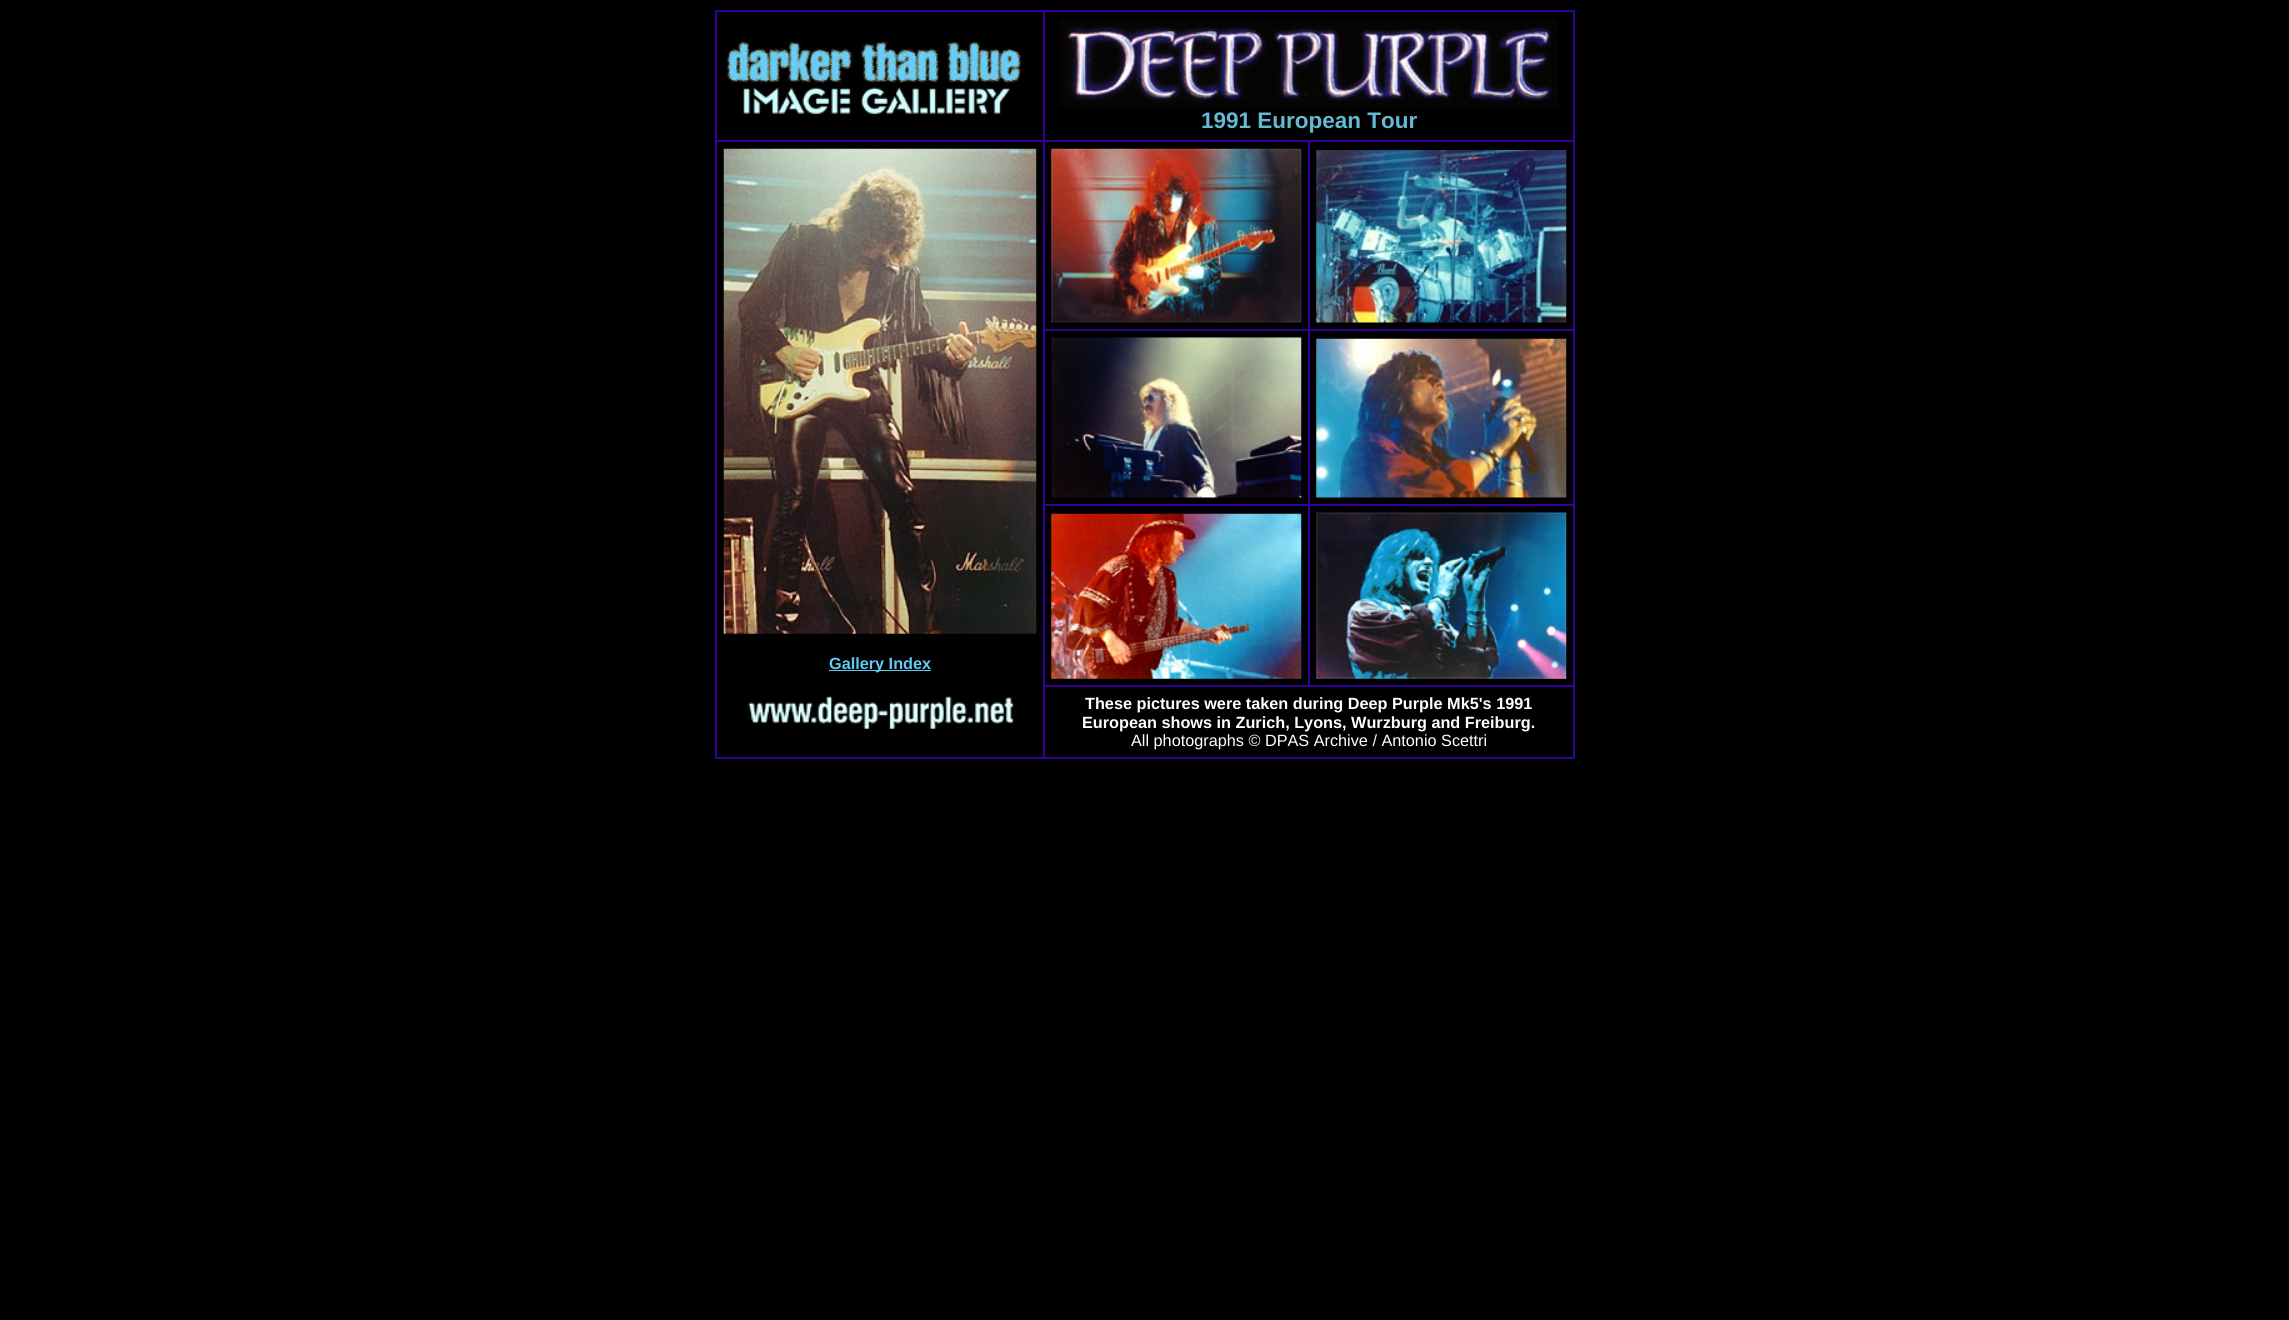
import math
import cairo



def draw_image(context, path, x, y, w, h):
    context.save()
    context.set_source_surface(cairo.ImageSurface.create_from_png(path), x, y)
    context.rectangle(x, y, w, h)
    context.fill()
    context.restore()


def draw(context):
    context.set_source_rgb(0, 0, 0)
    context.paint()
    context.rectangle(715.5, 10.5, 859, 748)
    context.set_source_rgb(51 / 255, 0, 153 / 255)
    context.set_line_width(1)
    context.stroke()
    context.rectangle(716.5, 11.5, 327, 129)
    context.stroke()
    draw_image(context, "images/1.png", 724, 36, 300, 80)
    context.rectangle(1044.5, 11.5, 529, 129)
    context.stroke()
    draw_image(context, "images/2.png", 1059, 19, 499, 89)
    context.rectangle(1044.5, 330.5, 264, 174)
    context.stroke()
    draw_image(context, "images/3.png", 1051, 337, 251, 161)
    context.rectangle(1309.5, 330.5, 264, 174)
    context.stroke()
    draw_image(context, "images/4.png", 1316, 338, 251, 160)
    context.rectangle(1044.5, 141.5, 264, 188)
    context.stroke()
    draw_image(context, "images/5.png", 1051, 148, 251, 175)
    context.rectangle(1309.5, 141.5, 264, 188)
    context.stroke()
    draw_image(context, "images/6.png", 1316, 150, 251, 173)
    context.rectangle(716.5, 141.5, 327, 616)
    context.stroke()
    draw_image(context, "images/7.png", 723, 148, 314, 486)
    context.set_source_rgb(97 / 255, 203 / 255, 245 / 255)
    context.rectangle(829, 670, 102, 1)
    context.fill()
    draw_image(context, "images/8.png", 746, 693, 269, 38)
    context.rectangle(1044.5, 505.5, 264, 180)
    context.set_source_rgb(51 / 255, 0, 153 / 255)
    context.stroke()
    draw_image(context, "images/9.png", 1051, 513, 251, 166)
    context.rectangle(1309.5, 505.5, 264, 180)
    context.stroke()
    draw_image(context, "images/10.png", 1316, 512, 251, 167)
    context.rectangle(1044.5, 686.5, 529, 71)
    context.stroke()
    context.select_font_face("Liberation Sans", cairo.FontSlant.NORMAL, cairo.FontWeight.BOLD)
    context.set_font_size(22.5)
    context.set_source_rgb(101 / 255, 185 / 255, 211 / 255)
    context.move_to(1201, 128)
    context.show_text("1991 European Tour")
    context.set_font_size(16.25)
    context.set_source_rgb(97 / 255, 203 / 255, 245 / 255)
    context.move_to(829, 669)
    context.show_text("Gallery Index")
    context.set_source_rgb(1, 1, 1)
    context.move_to(1085, 709)
    context.show_text("These pictures were taken during Deep Purple Mk5's 1991")
    context.move_to(1082, 728)
    context.show_text("European shows in Zurich, Lyons, Wurzburg and Freiburg.")
    context.select_font_face("Liberation Sans")
    context.move_to(1131, 746)
    context.show_text("All photographs © DPAS Archive / Antonio Scettri")


surface = cairo.ImageSurface(cairo.Format.RGB24, 2289, 1320)
context = cairo.Context(surface)
options = cairo.FontOptions()
options.set_hint_metrics(cairo.HintMetrics.OFF)
options.set_hint_style(cairo.HintStyle.NONE)
context.set_font_options(options)
context.set_miter_limit(4)
draw(context)
surface.write_to_png("out.png")
